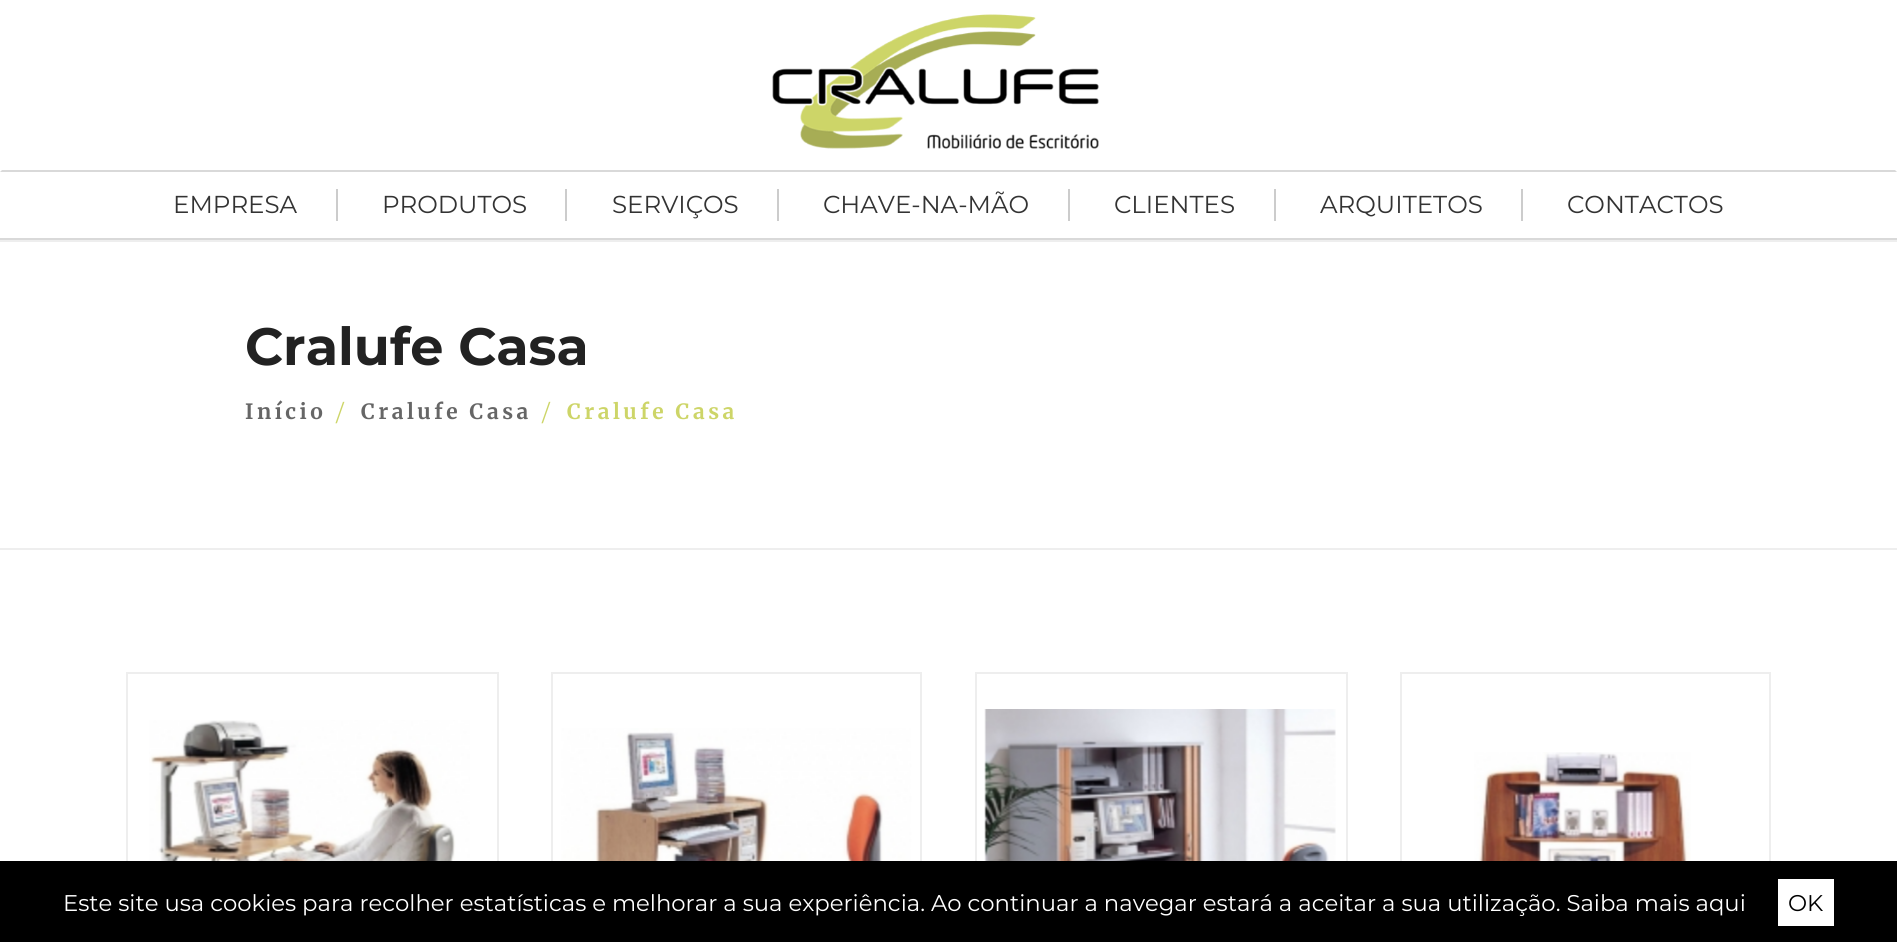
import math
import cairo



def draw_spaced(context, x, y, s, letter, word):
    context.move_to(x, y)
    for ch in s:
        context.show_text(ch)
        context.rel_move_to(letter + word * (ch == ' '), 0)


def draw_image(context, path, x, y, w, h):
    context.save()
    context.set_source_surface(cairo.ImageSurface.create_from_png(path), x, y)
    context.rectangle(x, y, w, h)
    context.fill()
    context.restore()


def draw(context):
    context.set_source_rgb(1, 1, 1)
    context.paint()
    context.set_source_rgb(238 / 255, 238 / 255, 238 / 255)
    context.rectangle(0, 240, 1897, 2)
    context.fill()
    context.set_source_rgb(217 / 255, 217 / 255, 217 / 255)
    context.new_path()
    context.move_to(1897, 172)
    context.line_to(0, 172)
    context.line_to(2, 170)
    context.line_to(1895, 170)
    context.close_path()
    context.fill()
    draw_image(context, "images/1.png", 772, 14, 327, 135)
    context.rectangle(0, 238, 1897, 2)
    context.fill()
    context.set_source_rgb(204 / 255, 204 / 255, 204 / 255)
    context.rectangle(336, 189, 2, 32)
    context.fill()
    context.rectangle(565, 189, 2, 32)
    context.fill()
    context.rectangle(777, 189, 2, 32)
    context.fill()
    context.rectangle(1068, 189, 2, 32)
    context.fill()
    context.rectangle(1274, 189, 2, 32)
    context.fill()
    context.rectangle(1521, 189, 2, 32)
    context.fill()
    context.set_source_rgb(238 / 255, 238 / 255, 238 / 255)
    context.rectangle(0, 548, 1897, 2)
    context.fill()
    context.rectangle(127, 673, 371, 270)
    context.stroke()
    draw_image(context, "images/2.png", 149, 720, 321, 141)
    context.rectangle(552, 673, 369, 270)
    context.stroke()
    draw_image(context, "images/3.png", 561, 728, 352, 133)
    context.rectangle(976, 673, 371, 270)
    context.stroke()
    draw_image(context, "images/4.png", 984, 709, 352, 152)
    context.rectangle(1401, 673, 369, 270)
    context.stroke()
    draw_image(context, "images/5.png", 1474, 752, 217, 109)
    context.set_source_rgb(0, 0, 0)
    context.rectangle(0, 861, 1897, 81)
    context.fill()
    context.set_source_rgb(1, 1, 1)
    context.rectangle(1778, 879, 56, 47)
    context.fill()
    context.select_font_face("Montserrat")
    context.set_font_size(24.5)
    context.set_source_rgb(51 / 255, 51 / 255, 51 / 255)
    context.move_to(173, 213)
    context.show_text("EMPRESA")
    context.move_to(382, 213)
    context.show_text("PRODUTOS")
    context.move_to(612, 213)
    context.show_text("SERVIÇOS")
    context.move_to(823, 213)
    context.show_text("CHAVE-NA-MÃO")
    context.move_to(1114, 213)
    context.show_text("CLIENTES")
    context.move_to(1320, 213)
    context.show_text("ARQUITETOS")
    context.move_to(1567, 213)
    context.show_text("CONTACTOS")
    context.select_font_face("Montserrat", cairo.FontSlant.NORMAL, cairo.FontWeight.BOLD)
    context.set_font_size(52.5)
    context.set_source_rgb(34 / 255, 34 / 255, 34 / 255)
    context.move_to(245, 365)
    context.show_text("Cralufe Casa")
    context.select_font_face("Merriweather", cairo.FontSlant.NORMAL, cairo.FontWeight.BOLD)
    context.set_font_size(21)
    context.set_source_rgb(102 / 255, 102 / 255, 102 / 255)
    draw_spaced(context, 245, 419, "Início", 3.5, 0)
    context.select_font_face("Montserrat")
    context.set_font_size(22.75)
    context.set_source_rgb(205 / 255, 213 / 255, 104 / 255)
    context.move_to(336, 421)
    context.show_text("/")
    context.select_font_face("Merriweather", cairo.FontSlant.NORMAL, cairo.FontWeight.BOLD)
    context.set_font_size(21)
    context.set_source_rgb(102 / 255, 102 / 255, 102 / 255)
    draw_spaced(context, 361, 419, "Cralufe Casa", 3.5, 0)
    context.select_font_face("Montserrat")
    context.set_font_size(22.75)
    context.set_source_rgb(205 / 255, 213 / 255, 104 / 255)
    context.move_to(542, 421)
    context.show_text("/")
    context.select_font_face("Merriweather", cairo.FontSlant.NORMAL, cairo.FontWeight.BOLD)
    context.set_font_size(21)
    draw_spaced(context, 567, 419, "Cralufe Casa", 3.5, 0)
    context.select_font_face("Montserrat")
    context.set_font_size(22.75)
    context.set_source_rgb(1, 1, 1)
    context.move_to(63, 911)
    context.show_text("Este site usa cookies para recolher estatísticas e melhorar a sua experiência. Ao continuar a navegar estará a aceitar a sua utilização. Saiba mais aqui")
    context.set_source_rgb(0, 0, 0)
    context.move_to(1788, 911)
    context.show_text("OK")


surface = cairo.ImageSurface(cairo.Format.RGB24, 1897, 942)
context = cairo.Context(surface)
options = cairo.FontOptions()
options.set_hint_metrics(cairo.HintMetrics.OFF)
options.set_hint_style(cairo.HintStyle.NONE)
context.set_font_options(options)
context.set_miter_limit(4)
draw(context)
surface.write_to_png("out.png")
